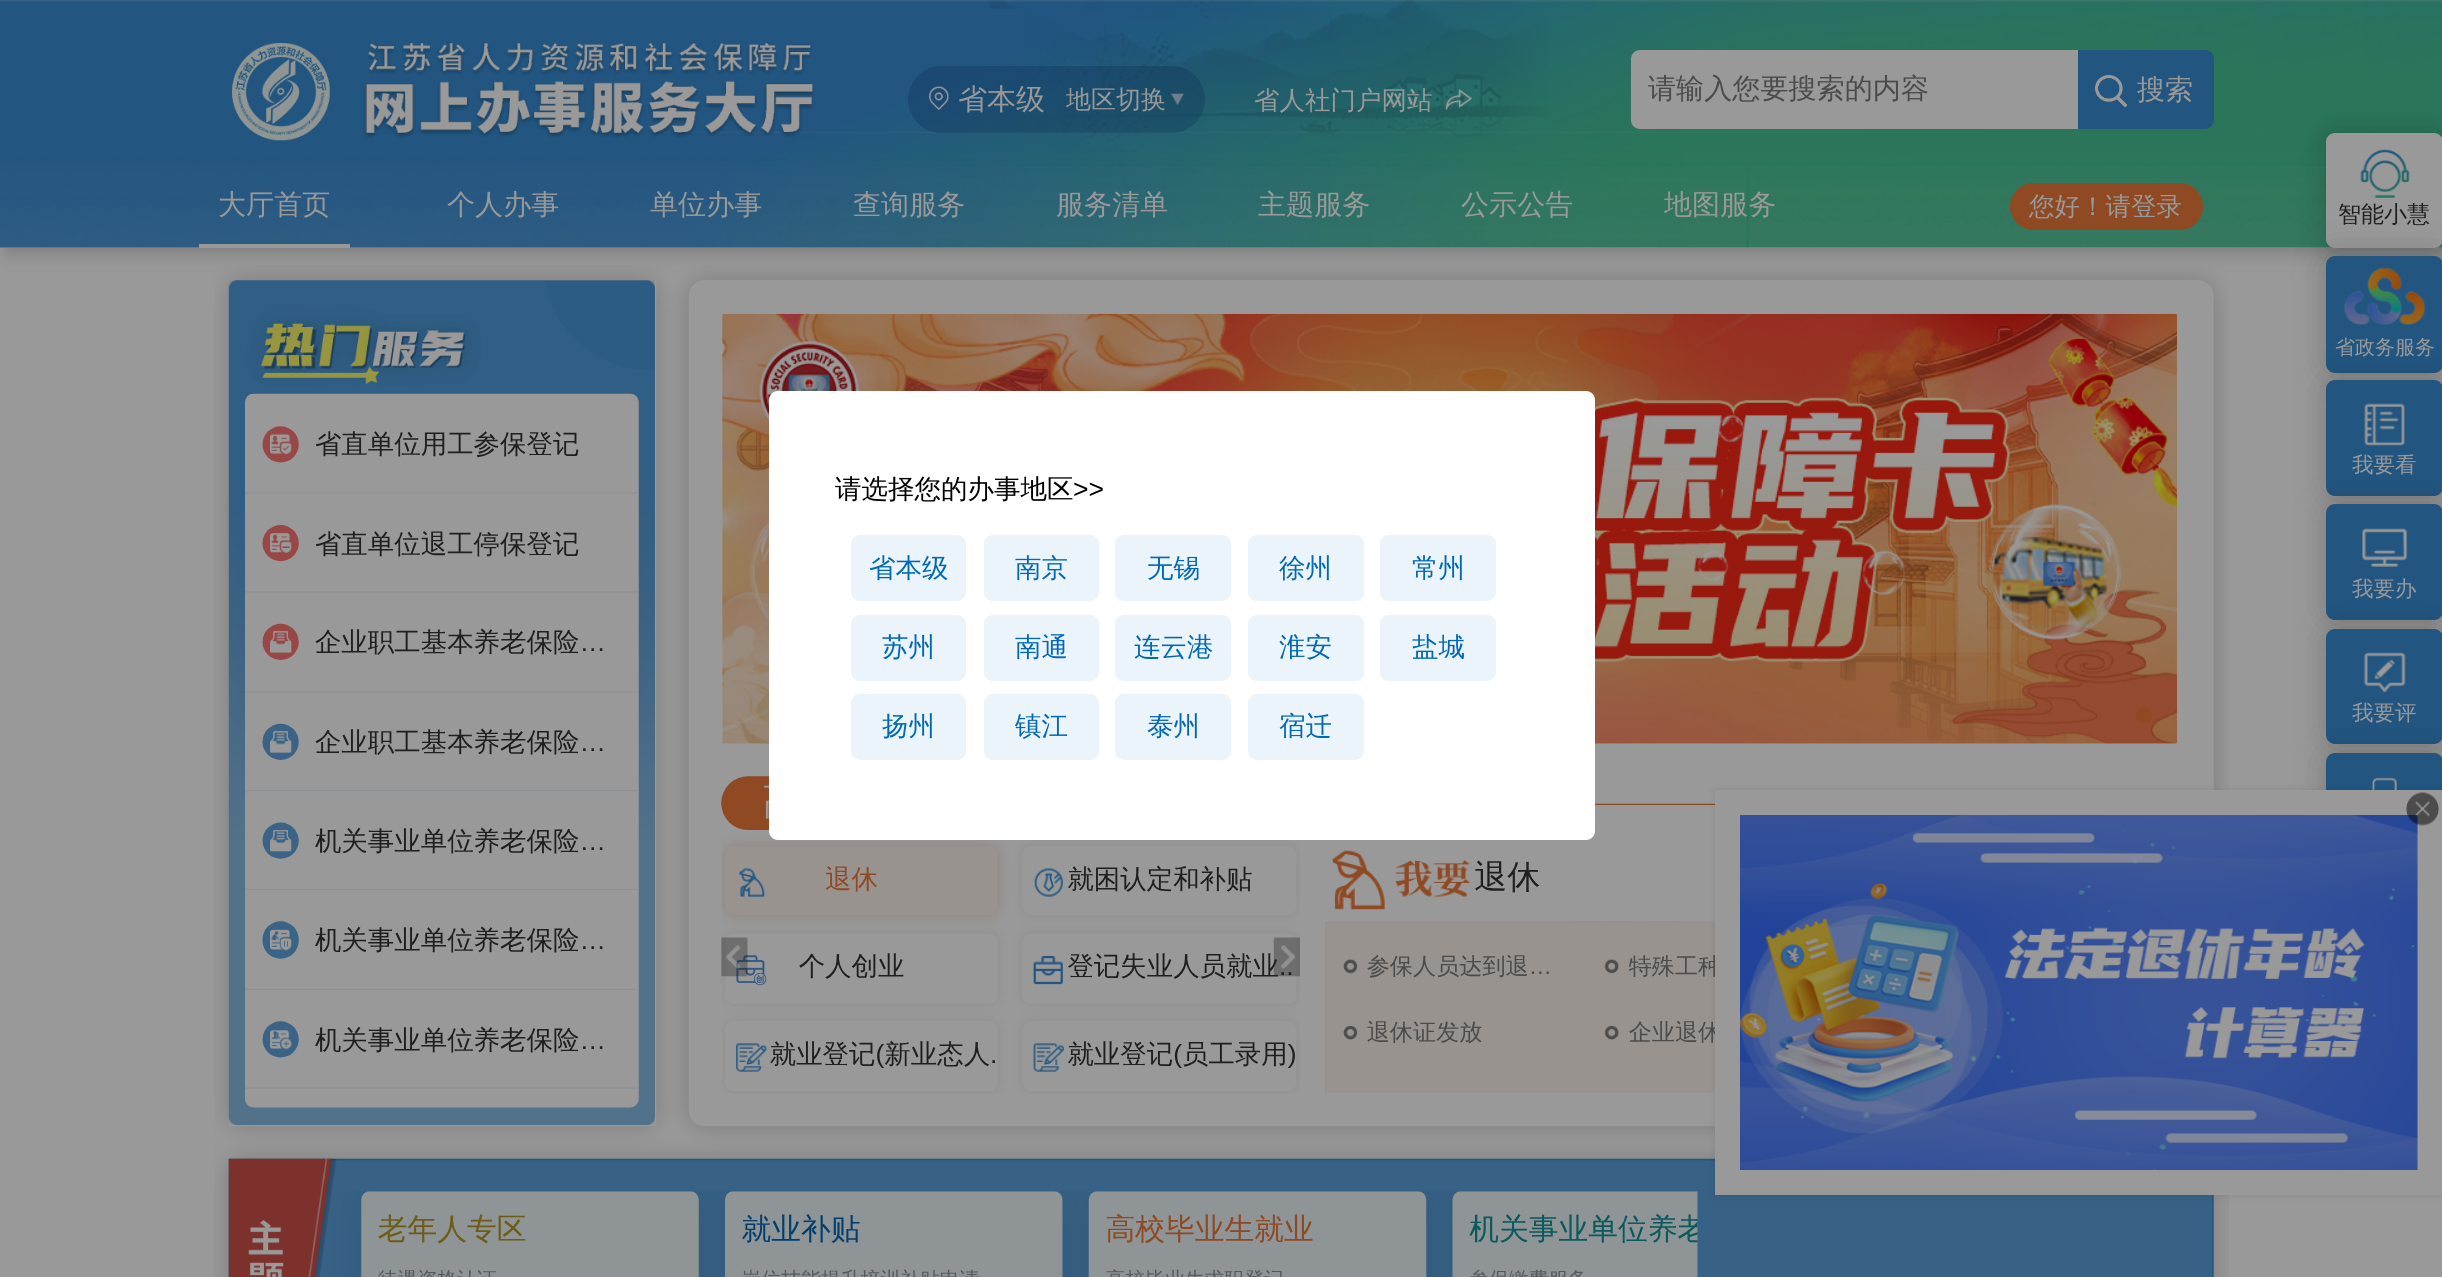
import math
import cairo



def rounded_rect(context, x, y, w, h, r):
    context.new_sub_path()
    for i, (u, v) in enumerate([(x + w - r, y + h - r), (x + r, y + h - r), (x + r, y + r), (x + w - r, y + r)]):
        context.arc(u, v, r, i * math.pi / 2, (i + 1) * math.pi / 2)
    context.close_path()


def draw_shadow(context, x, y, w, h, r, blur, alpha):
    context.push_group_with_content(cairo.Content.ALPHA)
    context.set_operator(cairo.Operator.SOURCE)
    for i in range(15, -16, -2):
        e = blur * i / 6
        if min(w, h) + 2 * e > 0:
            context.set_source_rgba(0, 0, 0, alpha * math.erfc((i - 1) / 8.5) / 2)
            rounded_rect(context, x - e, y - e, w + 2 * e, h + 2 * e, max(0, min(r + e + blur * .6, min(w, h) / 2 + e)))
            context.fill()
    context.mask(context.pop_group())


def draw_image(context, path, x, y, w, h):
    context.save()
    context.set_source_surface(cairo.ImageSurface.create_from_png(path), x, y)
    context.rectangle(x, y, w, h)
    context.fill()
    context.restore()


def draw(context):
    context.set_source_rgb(153 / 255, 153 / 255, 153 / 255)
    context.paint()
    context.save()
    context.set_fill_rule(cairo.FillRule.EVEN_ODD)
    context.new_path()
    context.move_to(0, 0)
    context.line_to(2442, 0)
    context.line_to(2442, 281)
    context.line_to(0, 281)
    context.close_path()
    context.move_to(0, 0)
    context.line_to(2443, 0)
    context.line_to(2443, 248)
    context.line_to(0, 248)
    context.close_path()
    context.clip()
    context.set_source_rgb(127 / 255, 127 / 255, 127 / 255)
    draw_shadow(context, 6, 6, 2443, 248, 0, 8.5, 1)
    context.restore()
    draw_image(context, "images/1.png", 0, 0, 2442, 248)
    draw_image(context, "images/2.png", 232, 42, 584, 99)
    context.set_source_rgba(1 / 255, 23 / 255, 66 / 255, 0.2)
    rounded_rect(context, 908, 66, 297, 67, 33.5)
    context.fill()
    draw_image(context, "images/3.png", 929, 86, 20, 25)
    draw_image(context, "images/4.png", 1171, 93, 13, 12)
    draw_image(context, "images/5.png", 1445, 89, 27, 21)
    context.set_source_rgb(153 / 255, 153 / 255, 153 / 255)
    context.new_path()
    context.move_to(1640, 50)
    context.line_to(2078, 50)
    context.line_to(2078, 129)
    context.line_to(1640, 129)
    context.curve_to(1635, 129, 1631, 125, 1631, 120)
    context.line_to(1631, 59)
    context.curve_to(1631, 54, 1635, 50, 1640, 50)
    context.close_path()
    context.fill()
    context.set_source_rgb(34 / 255, 86 / 255, 129 / 255)
    context.new_path()
    context.move_to(2078, 50)
    context.line_to(2205, 50)
    context.curve_to(2210, 50, 2214, 54, 2214, 59)
    context.line_to(2214, 120)
    context.curve_to(2214, 125, 2210, 129, 2205, 129)
    context.line_to(2078, 129)
    context.close_path()
    context.fill()
    draw_image(context, "images/6.png", 2095, 75, 33, 33)
    context.set_source_rgb(153 / 255, 153 / 255, 153 / 255)
    context.rectangle(199, 244, 151, 4)
    context.fill()
    context.set_source_rgb(143 / 255, 73 / 255, 35 / 255)
    rounded_rect(context, 2010, 183, 193, 47, 23.5)
    context.fill()
    draw_image(context, "images/7.png", 214, 265, 2015, 1012)
    context.set_source_rgb(0, 0, 0)
    draw_shadow(context, 2326, 133, 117, 115, 9, 16.5, 0.2)
    context.set_source_rgb(153 / 255, 153 / 255, 153 / 255)
    rounded_rect(context, 2326, 133, 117, 115, 9)
    context.fill()
    draw_image(context, "images/8.png", 2360, 149, 50, 49)
    context.set_source_rgb(0, 0, 0)
    draw_shadow(context, 2326, 256, 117, 117, 9, 16.5, 0.2)
    context.set_source_rgb(34 / 255, 86 / 255, 129 / 255)
    rounded_rect(context, 2326, 256, 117, 117, 9)
    context.fill()
    draw_image(context, "images/9.png", 2344, 267, 82, 58)
    context.set_source_rgb(0, 0, 0)
    draw_shadow(context, 2326, 380, 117, 116, 9, 16.5, 0.2)
    context.set_source_rgb(34 / 255, 86 / 255, 129 / 255)
    rounded_rect(context, 2326, 380, 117, 116, 9)
    context.fill()
    draw_image(context, "images/10.png", 2364, 403, 41, 43)
    context.set_source_rgb(0, 0, 0)
    draw_shadow(context, 2326, 504, 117, 116, 9, 16.5, 0.2)
    context.set_source_rgb(34 / 255, 86 / 255, 129 / 255)
    rounded_rect(context, 2326, 504, 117, 116, 9)
    context.fill()
    draw_image(context, "images/11.png", 2362, 528, 46, 39)
    context.set_source_rgb(0, 0, 0)
    draw_shadow(context, 2326, 629, 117, 115, 9, 16.5, 0.2)
    context.set_source_rgb(34 / 255, 86 / 255, 129 / 255)
    rounded_rect(context, 2326, 629, 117, 115, 9)
    context.fill()
    context.set_source_rgb(0, 0, 0)
    draw_shadow(context, 2326, 753, 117, 116, 9, 16.5, 0.2)
    context.set_source_rgb(34 / 255, 86 / 255, 129 / 255)
    rounded_rect(context, 2326, 753, 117, 116, 9)
    context.fill()
    draw_image(context, "images/12.png", 2372, 777, 25, 13)
    draw_image(context, "images/13.png", 2363, 652, 43, 41)
    context.set_source_rgb(0, 0, 0)
    draw_shadow(context, 1715, 790, 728, 405, 0, 4, 0.1)
    context.set_source_rgb(153 / 255, 153 / 255, 153 / 255)
    context.rectangle(1715, 790, 727, 405)
    context.fill()
    draw_image(context, "images/15.png", 1740, 815, 678, 355)
    draw_image(context, "images/14.png", 2406, 792, 33, 34)
    context.set_source_rgb(1, 1, 1)
    rounded_rect(context, 769, 391, 826, 449, 9)
    context.fill()
    context.set_source_rgb(235 / 255, 244 / 255, 251 / 255)
    rounded_rect(context, 851, 535, 115, 66, 9)
    context.fill()
    rounded_rect(context, 984, 535, 115, 66, 9)
    context.fill()
    rounded_rect(context, 1115, 535, 116, 66, 9)
    context.fill()
    rounded_rect(context, 1248, 535, 116, 66, 9)
    context.fill()
    rounded_rect(context, 1380, 535, 116, 66, 9)
    context.fill()
    rounded_rect(context, 851, 615, 115, 66, 9)
    context.fill()
    rounded_rect(context, 984, 615, 115, 66, 9)
    context.fill()
    rounded_rect(context, 1115, 615, 116, 66, 9)
    context.fill()
    rounded_rect(context, 1248, 615, 116, 66, 9)
    context.fill()
    rounded_rect(context, 1380, 615, 116, 66, 9)
    context.fill()
    rounded_rect(context, 851, 694, 115, 66, 9)
    context.fill()
    rounded_rect(context, 984, 694, 115, 66, 9)
    context.fill()
    rounded_rect(context, 1115, 694, 116, 66, 9)
    context.fill()
    rounded_rect(context, 1248, 694, 116, 66, 9)
    context.fill()
    context.select_font_face("WenQuanYi Zen Hei Medium")
    context.set_font_size(29)
    context.set_source_rgb(153 / 255, 153 / 255, 153 / 255)
    context.move_to(958, 109)
    context.show_text("省本级")
    context.set_font_size(25)
    context.move_to(1066, 108)
    context.show_text("地区切换")
    context.set_font_size(25.5)
    context.move_to(1254, 109)
    context.show_text("省人社门户网站")
    context.set_font_size(28.1)
    context.set_source_rgb(75 / 255, 75 / 255, 75 / 255)
    context.move_to(1648, 98)
    context.show_text("请输入您要搜索的内容")
    context.set_source_rgb(153 / 255, 153 / 255, 153 / 255)
    context.move_to(2137, 99)
    context.show_text("搜索")
    context.move_to(218, 214)
    context.show_text("大厅首页")
    context.move_to(447, 214)
    context.show_text("个人办事")
    context.move_to(650, 214)
    context.show_text("单位办事")
    context.move_to(853, 214)
    context.show_text("查询服务")
    context.move_to(1056, 214)
    context.show_text("服务清单")
    context.move_to(1258, 214)
    context.show_text("主题服务")
    context.move_to(1461, 214)
    context.show_text("公示公告")
    context.move_to(1664, 214)
    context.show_text("地图服务")
    context.set_font_size(25.5)
    context.move_to(2029, 215)
    context.show_text("您好！请登录")
    context.set_font_size(23)
    context.set_source_rgb(31 / 255, 31 / 255, 31 / 255)
    context.move_to(2338, 222)
    context.show_text("智能小慧")
    context.set_font_size(20)
    context.set_source_rgb(153 / 255, 153 / 255, 153 / 255)
    context.move_to(2335, 354)
    context.show_text("省政务服务")
    context.set_font_size(21.5)
    context.move_to(2352, 472)
    context.show_text("我要看")
    context.move_to(2352, 596)
    context.show_text("我要办")
    context.move_to(2352, 720)
    context.show_text("我要评")
    context.set_font_size(26.5)
    context.set_source_rgb(0, 0, 0)
    context.move_to(835, 498)
    context.show_text("请选择您的办事地区")
    context.select_font_face("Liberation Sans")
    context.move_to(1073, 498)
    context.show_text(">>")
    context.select_font_face("WenQuanYi Zen Hei Medium")
    context.set_source_rgb(0, 104 / 255, 183 / 255)
    context.move_to(869, 577)
    context.show_text("省本级")
    context.move_to(1015, 577)
    context.show_text("南京")
    context.move_to(1147, 577)
    context.show_text("无锡")
    context.move_to(1279, 577)
    context.show_text("徐州")
    context.move_to(1412, 577)
    context.show_text("常州")
    context.move_to(882, 656)
    context.show_text("苏州")
    context.move_to(1015, 656)
    context.show_text("南通")
    context.move_to(1134, 656)
    context.show_text("连云港")
    context.move_to(1279, 656)
    context.show_text("淮安")
    context.move_to(1412, 656)
    context.show_text("盐城")
    context.move_to(882, 735)
    context.show_text("扬州")
    context.move_to(1015, 735)
    context.show_text("镇江")
    context.move_to(1147, 735)
    context.show_text("泰州")
    context.move_to(1279, 735)
    context.show_text("宿迁")


surface = cairo.ImageSurface(cairo.Format.RGB24, 2442, 1277)
context = cairo.Context(surface)
options = cairo.FontOptions()
options.set_hint_metrics(cairo.HintMetrics.OFF)
options.set_hint_style(cairo.HintStyle.NONE)
context.set_font_options(options)
context.set_miter_limit(4)
draw(context)
surface.write_to_png("out.png")
